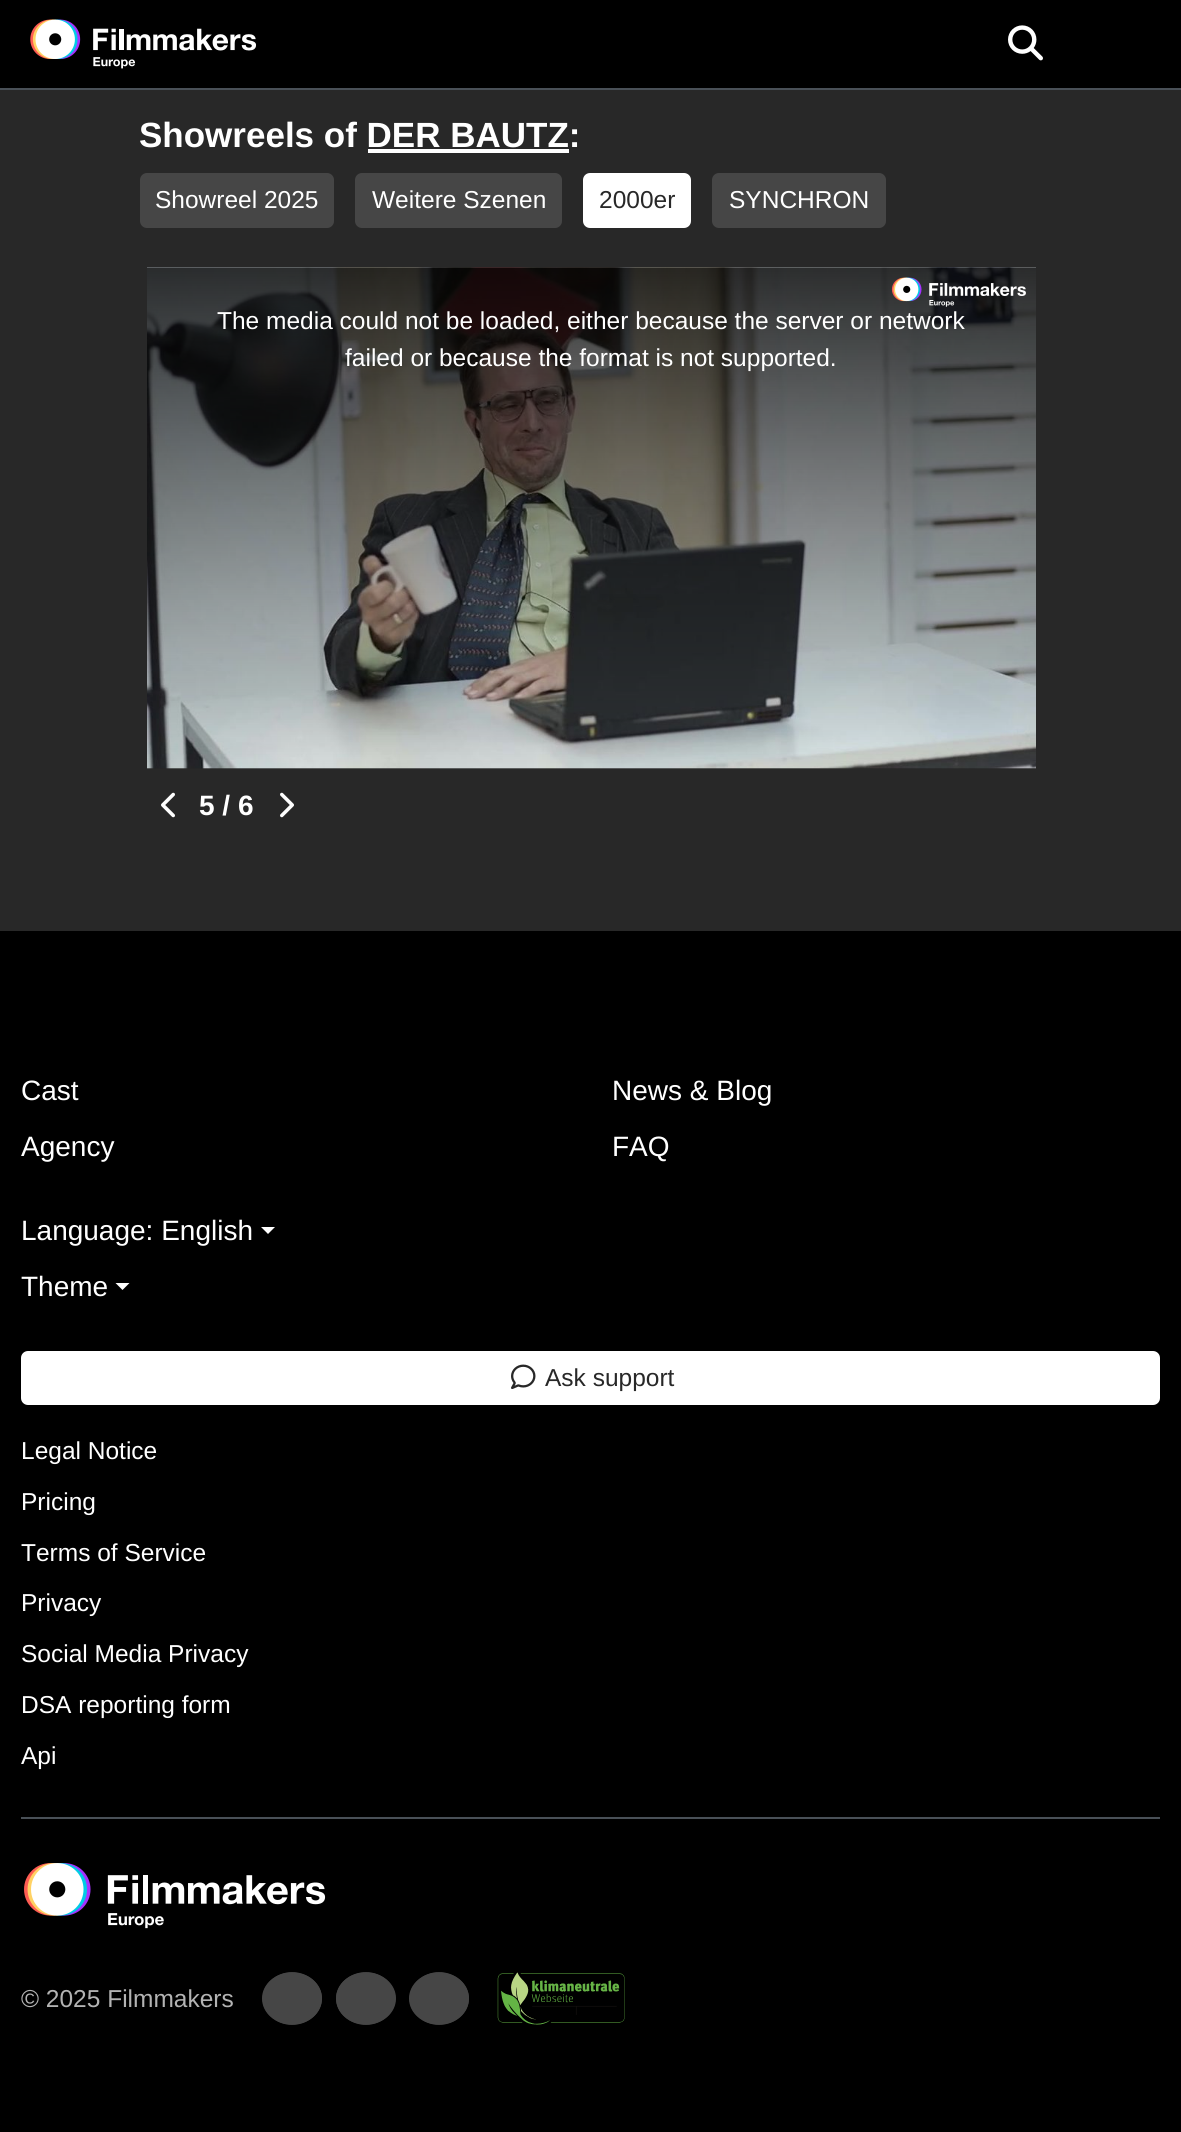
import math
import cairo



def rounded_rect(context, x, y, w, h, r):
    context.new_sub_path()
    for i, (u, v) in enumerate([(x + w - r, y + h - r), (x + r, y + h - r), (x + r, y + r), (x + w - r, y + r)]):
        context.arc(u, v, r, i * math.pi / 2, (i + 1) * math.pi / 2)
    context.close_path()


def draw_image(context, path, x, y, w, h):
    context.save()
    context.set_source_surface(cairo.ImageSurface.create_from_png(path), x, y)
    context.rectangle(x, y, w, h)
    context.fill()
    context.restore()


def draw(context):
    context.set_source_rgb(40 / 255, 40 / 255, 40 / 255)
    context.paint()
    context.set_source_rgb(0, 0, 0)
    context.rectangle(0, 0, 1181, 88)
    context.fill()
    context.set_source_rgb(73 / 255, 80 / 255, 87 / 255)
    context.rectangle(0, 88, 1181, 2)
    context.fill()
    draw_image(context, "images/1.png", 30, 19, 227, 50)
    draw_image(context, "images/2.png", 1008, 25, 35, 36)
    context.set_source_rgb(1, 1, 1)
    context.rectangle(368, 149, 201, 4)
    context.fill()
    context.set_source_rgb(70 / 255, 70 / 255, 70 / 255)
    rounded_rect(context, 141, 174, 192, 53, 6)
    context.fill_preserve()
    context.stroke()
    rounded_rect(context, 356, 174, 205, 53, 6)
    context.fill_preserve()
    context.stroke()
    context.set_source_rgb(1, 1, 1)
    rounded_rect(context, 584, 174, 106, 53, 6)
    context.fill_preserve()
    context.stroke()
    context.set_source_rgb(70 / 255, 70 / 255, 70 / 255)
    rounded_rect(context, 713, 174, 172, 53, 6)
    context.fill_preserve()
    context.stroke()
    draw_image(context, "images/3.png", 147, 267, 889, 502)
    draw_image(context, "images/4.png", 147, 267, 889, 502)
    draw_image(context, "images/5.png", 891, 277, 135, 30)
    draw_image(context, "images/6.png", 161, 792, 14, 26)
    draw_image(context, "images/7.png", 280, 792, 14, 26)
    context.set_source_rgb(0, 0, 0)
    context.rectangle(0, 931, 1181, 1201)
    context.fill()
    context.set_source_rgb(1, 1, 1)
    context.new_path()
    context.move_to(261, 1227)
    context.line_to(275, 1227)
    context.line_to(268, 1234)
    context.close_path()
    context.fill()
    context.new_path()
    context.move_to(115.5, 1283)
    context.line_to(129.5, 1283)
    context.line_to(122.5, 1290)
    context.close_path()
    context.fill()
    rounded_rect(context, 22, 1352, 1137, 52, 6)
    context.fill_preserve()
    context.stroke()
    draw_image(context, "images/8.png", 511, 1364, 25, 25)
    context.set_source_rgb(73 / 255, 80 / 255, 87 / 255)
    context.rectangle(21, 1817, 1139, 2)
    context.fill()
    draw_image(context, "images/9.png", 24, 1863, 302, 66)
    context.set_source_rgb(70 / 255, 70 / 255, 70 / 255)
    context.new_path()
    context.move_to(292, 1972.5)
    context.curve_to(308.5, 1972.5, 322, 1984, 322, 1998.5)
    context.curve_to(322, 2013, 308.5, 2024.5, 292, 2024.5)
    context.curve_to(275.5, 2024.5, 262, 2013, 262, 1998.5)
    context.curve_to(262, 1984, 275.5, 1972.5, 292, 1972.5)
    context.close_path()
    context.fill()
    context.new_path()
    context.move_to(292, 1973)
    context.curve_to(308, 1973, 321, 1984.5, 321, 1998.5)
    context.curve_to(321, 2012.5, 308, 2024, 292, 2024)
    context.curve_to(276.5, 2024, 263.5, 2012.5, 263.5, 1998.5)
    context.curve_to(263.5, 1984.5, 276.5, 1973, 292, 1973)
    context.close_path()
    context.set_line_width(1.8)
    context.stroke()
    context.new_path()
    context.move_to(366, 1972.5)
    context.curve_to(382.5, 1972.5, 396, 1984, 396, 1998.5)
    context.curve_to(396, 2013, 382.5, 2024.5, 366, 2024.5)
    context.curve_to(349.5, 2024.5, 336, 2013, 336, 1998.5)
    context.curve_to(336, 1984, 349.5, 1972.5, 366, 1972.5)
    context.close_path()
    context.fill()
    context.new_path()
    context.move_to(366, 1973)
    context.curve_to(381.5, 1973, 394.5, 1984.5, 394.5, 1998.5)
    context.curve_to(394.5, 2012.5, 381.5, 2024, 366, 2024)
    context.curve_to(350, 2024, 337, 2012.5, 337, 1998.5)
    context.curve_to(337, 1984.5, 350, 1973, 366, 1973)
    context.close_path()
    context.stroke()
    context.new_path()
    context.move_to(439, 1972.5)
    context.curve_to(455.5, 1972.5, 469, 1984, 469, 1998.5)
    context.curve_to(469, 2013, 455.5, 2024.5, 439, 2024.5)
    context.curve_to(422.5, 2024.5, 409, 2013, 409, 1998.5)
    context.curve_to(409, 1984, 422.5, 1972.5, 439, 1972.5)
    context.close_path()
    context.fill()
    context.new_path()
    context.move_to(439, 1973)
    context.curve_to(455, 1973, 468, 1984.5, 468, 1998.5)
    context.curve_to(468, 2012.5, 455, 2024, 439, 2024)
    context.curve_to(423.5, 2024, 410.5, 2012.5, 410.5, 1998.5)
    context.curve_to(410.5, 1984.5, 423.5, 1973, 439, 1973)
    context.close_path()
    context.stroke()
    draw_image(context, "images/10.png", 497, 1972, 128, 53)
    context.select_font_face("Liberation Sans", cairo.FontSlant.NORMAL, cairo.FontWeight.BOLD)
    context.set_font_size(35)
    context.set_source_rgb(1, 1, 1)
    context.move_to(139, 147)
    context.show_text("Showreels of DER BAUTZ:")
    context.select_font_face("Liberation Sans")
    context.set_font_size(24.5)
    context.move_to(155, 208)
    context.show_text("Showreel 2025")
    context.move_to(372, 208)
    context.show_text("Weitere Szenen")
    context.set_source_rgb(40 / 255, 40 / 255, 40 / 255)
    context.move_to(599, 208)
    context.show_text("2000er")
    context.set_source_rgb(1, 1, 1)
    context.move_to(729, 208)
    context.show_text("SYNCHRON")
    context.move_to(217, 329)
    context.show_text("The media could not be loaded, either because the server or network")
    context.move_to(345, 366)
    context.show_text("failed or because the format is not supported.")
    context.select_font_face("Liberation Sans", cairo.FontSlant.NORMAL, cairo.FontWeight.BOLD)
    context.set_font_size(28)
    context.move_to(199, 815)
    context.show_text("5 / 6")
    context.select_font_face("Liberation Sans")
    context.move_to(21, 1100)
    context.show_text("Cast")
    context.move_to(21, 1156)
    context.show_text("Agency")
    context.move_to(612, 1100)
    context.show_text("News & Blog")
    context.move_to(612, 1156)
    context.show_text("FAQ")
    context.move_to(21, 1240)
    context.show_text("Language: English")
    context.move_to(21, 1296)
    context.show_text("Theme")
    context.set_font_size(24.5)
    context.set_source_rgb(40 / 255, 40 / 255, 40 / 255)
    context.move_to(545, 1386)
    context.show_text("Ask support")
    context.set_source_rgb(1, 1, 1)
    context.move_to(21, 1459)
    context.show_text("Legal Notice")
    context.move_to(21, 1510)
    context.show_text("Pricing")
    context.move_to(21, 1561)
    context.show_text("Terms of Service")
    context.move_to(21, 1611)
    context.show_text("Privacy")
    context.move_to(21, 1662)
    context.show_text("Social Media Privacy")
    context.move_to(21, 1713)
    context.show_text("DSA reporting form")
    context.move_to(21, 1764)
    context.show_text("Api")
    context.set_source_rgb(179 / 255, 179 / 255, 179 / 255)
    context.move_to(21, 2007)
    context.show_text("© 2025 Filmmakers")


surface = cairo.ImageSurface(cairo.Format.RGB24, 1181, 2132)
context = cairo.Context(surface)
options = cairo.FontOptions()
options.set_hint_metrics(cairo.HintMetrics.OFF)
options.set_hint_style(cairo.HintStyle.NONE)
context.set_font_options(options)
context.set_miter_limit(4)
draw(context)
surface.write_to_png("out.png")
